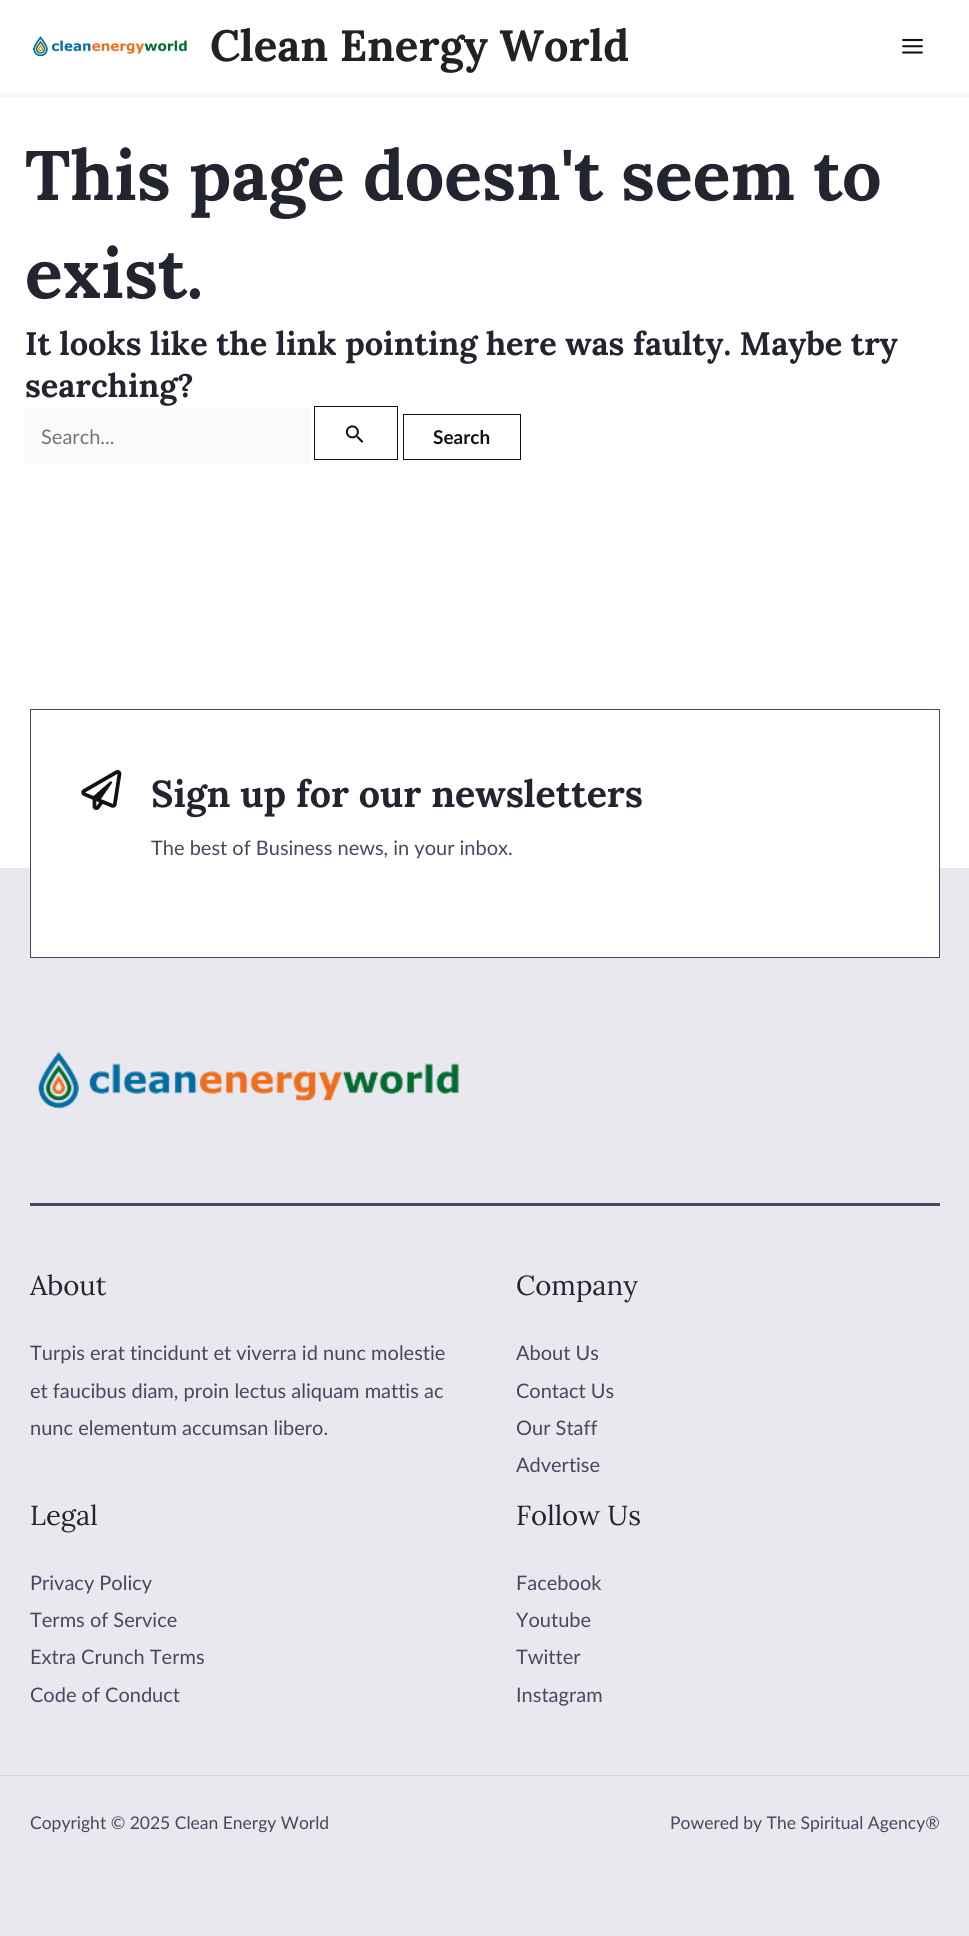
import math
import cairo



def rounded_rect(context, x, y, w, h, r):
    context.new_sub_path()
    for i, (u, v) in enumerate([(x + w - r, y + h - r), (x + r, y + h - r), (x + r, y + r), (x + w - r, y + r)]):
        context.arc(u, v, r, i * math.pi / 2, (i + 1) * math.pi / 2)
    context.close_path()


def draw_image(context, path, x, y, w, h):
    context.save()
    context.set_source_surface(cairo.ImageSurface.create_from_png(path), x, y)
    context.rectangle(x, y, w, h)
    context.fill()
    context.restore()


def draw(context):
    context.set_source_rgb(1, 1, 1)
    context.paint()
    context.set_source_rgb(247 / 255, 247 / 255, 248 / 255)
    context.rectangle(0, 93, 969, 4)
    context.fill()
    draw_image(context, "images/1.png", 33, 36, 154, 21)
    draw_image(context, "images/2.png", 902, 38, 21, 16)
    context.set_source_rgb(250 / 255, 250 / 255, 250 / 255)
    rounded_rect(context, 25.5, 408.5, 283, 55, 2)
    context.fill_preserve()
    context.set_source_rgb(247 / 255, 247 / 255, 248 / 255)
    context.set_line_width(1)
    context.stroke()
    context.rectangle(314.5, 406.5, 83, 53)
    context.set_source_rgb(17 / 255, 18 / 255, 24 / 255)
    context.stroke()
    draw_image(context, "images/3.png", 345, 425, 19, 18)
    context.rectangle(403.5, 414.5, 117, 45)
    context.stroke()
    context.set_source_rgb(232 / 255, 232 / 255, 238 / 255)
    context.rectangle(0, 868, 969, 1068)
    context.fill()
    context.set_source_rgb(1, 1, 1)
    context.rectangle(31, 868, 908, 89)
    context.fill()
    context.rectangle(30.5, 709.5, 909, 248)
    context.set_source_rgb(69 / 255, 72 / 255, 95 / 255)
    context.stroke()
    draw_image(context, "images/4.png", 81, 770, 41, 40)
    context.rectangle(30, 1203, 910, 3)
    context.fill()
    draw_image(context, "images/5.png", 38, 1051, 421, 58)
    context.set_source_rgb(214 / 255, 214 / 255, 225 / 255)
    context.rectangle(0, 1775, 969, 1)
    context.fill()
    context.select_font_face("Lora", cairo.FontSlant.NORMAL, cairo.FontWeight.BOLD)
    context.set_font_size(43.75)
    context.set_source_rgb(34 / 255, 34 / 255, 34 / 255)
    context.move_to(210, 61)
    context.show_text("Clean Energy World")
    context.set_font_size(70)
    context.set_source_rgb(34 / 255, 36 / 255, 47 / 255)
    context.move_to(25, 200)
    context.show_text("This page doesn't seem to")
    context.move_to(25, 298)
    context.show_text("exist.")
    context.set_font_size(32.5)
    context.move_to(25, 355)
    context.show_text("It looks like the link pointing here was faulty. Maybe try")
    context.move_to(25, 397)
    context.show_text("searching?")
    context.select_font_face("Lato")
    context.set_font_size(20)
    context.set_source_rgb(117 / 255, 117 / 255, 117 / 255)
    context.move_to(41, 444)
    context.show_text("Search...")
    context.select_font_face("Lato", cairo.FontSlant.NORMAL, cairo.FontWeight.BOLD)
    context.set_font_size(19)
    context.set_source_rgb(17 / 255, 18 / 255, 24 / 255)
    context.move_to(433, 444)
    context.show_text("Search")
    context.select_font_face("Lora", cairo.FontSlant.NORMAL, cairo.FontWeight.BOLD)
    context.set_font_size(37.5)
    context.set_source_rgb(34 / 255, 36 / 255, 47 / 255)
    context.move_to(151, 807)
    context.show_text("Sign up for our newsletters")
    context.select_font_face("Lato")
    context.set_font_size(20)
    context.set_source_rgb(69 / 255, 72 / 255, 95 / 255)
    context.move_to(151, 855)
    context.show_text("The best of Business news, in your inbox.")
    context.select_font_face("Lora")
    context.set_font_size(27.5)
    context.set_source_rgb(34 / 255, 36 / 255, 47 / 255)
    context.move_to(30, 1295)
    context.show_text("About")
    context.select_font_face("Lato")
    context.set_font_size(20)
    context.set_source_rgb(69 / 255, 72 / 255, 95 / 255)
    context.move_to(30, 1360)
    context.show_text("Turpis erat tincidunt et viverra id nunc molestie")
    context.move_to(30, 1398)
    context.show_text("et faucibus diam, proin lectus aliquam mattis ac")
    context.move_to(30, 1435)
    context.show_text("nunc elementum accumsan libero.")
    context.select_font_face("Lora")
    context.set_font_size(27.5)
    context.set_source_rgb(34 / 255, 36 / 255, 47 / 255)
    context.move_to(516, 1295)
    context.show_text("Company")
    context.select_font_face("Lato")
    context.set_font_size(20)
    context.set_source_rgb(69 / 255, 72 / 255, 95 / 255)
    context.move_to(516, 1360)
    context.show_text("About Us")
    context.move_to(516, 1398)
    context.show_text("Contact Us")
    context.move_to(516, 1435)
    context.show_text("Our Staff")
    context.move_to(516, 1472)
    context.show_text("Advertise")
    context.select_font_face("Lora")
    context.set_font_size(27.5)
    context.set_source_rgb(34 / 255, 36 / 255, 47 / 255)
    context.move_to(30, 1525)
    context.show_text("Legal")
    context.select_font_face("Lato")
    context.set_font_size(20)
    context.set_source_rgb(69 / 255, 72 / 255, 95 / 255)
    context.move_to(30, 1590)
    context.show_text("Privacy Policy")
    context.move_to(30, 1627)
    context.show_text("Terms of Service")
    context.move_to(30, 1664)
    context.show_text("Extra Crunch Terms")
    context.move_to(30, 1702)
    context.show_text("Code of Conduct")
    context.select_font_face("Lora")
    context.set_font_size(27.5)
    context.set_source_rgb(34 / 255, 36 / 255, 47 / 255)
    context.move_to(516, 1525)
    context.show_text("Follow Us")
    context.select_font_face("Lato")
    context.set_font_size(20)
    context.set_source_rgb(69 / 255, 72 / 255, 95 / 255)
    context.move_to(516, 1590)
    context.show_text("Facebook")
    context.move_to(516, 1627)
    context.show_text("Youtube")
    context.move_to(516, 1664)
    context.show_text("Twitter")
    context.move_to(516, 1702)
    context.show_text("Instagram")
    context.set_font_size(17.5)
    context.move_to(30, 1829)
    context.show_text("Copyright © 2025 Clean Energy World")
    context.move_to(670, 1829)
    context.show_text("Powered by The Spiritual Agency®")


surface = cairo.ImageSurface(cairo.Format.RGB24, 969, 1936)
context = cairo.Context(surface)
options = cairo.FontOptions()
options.set_hint_metrics(cairo.HintMetrics.OFF)
options.set_hint_style(cairo.HintStyle.NONE)
context.set_font_options(options)
context.set_miter_limit(4)
draw(context)
surface.write_to_png("out.png")
